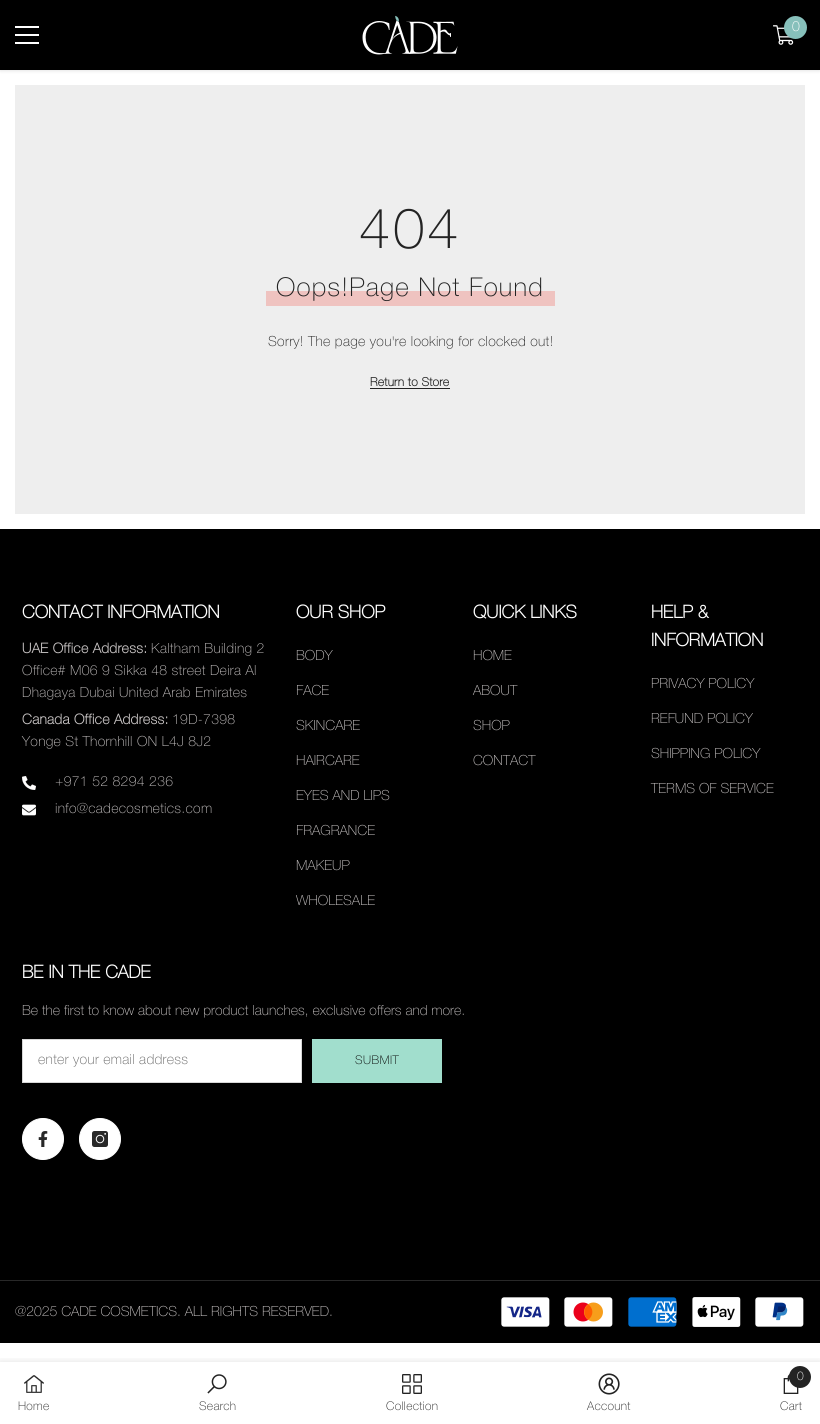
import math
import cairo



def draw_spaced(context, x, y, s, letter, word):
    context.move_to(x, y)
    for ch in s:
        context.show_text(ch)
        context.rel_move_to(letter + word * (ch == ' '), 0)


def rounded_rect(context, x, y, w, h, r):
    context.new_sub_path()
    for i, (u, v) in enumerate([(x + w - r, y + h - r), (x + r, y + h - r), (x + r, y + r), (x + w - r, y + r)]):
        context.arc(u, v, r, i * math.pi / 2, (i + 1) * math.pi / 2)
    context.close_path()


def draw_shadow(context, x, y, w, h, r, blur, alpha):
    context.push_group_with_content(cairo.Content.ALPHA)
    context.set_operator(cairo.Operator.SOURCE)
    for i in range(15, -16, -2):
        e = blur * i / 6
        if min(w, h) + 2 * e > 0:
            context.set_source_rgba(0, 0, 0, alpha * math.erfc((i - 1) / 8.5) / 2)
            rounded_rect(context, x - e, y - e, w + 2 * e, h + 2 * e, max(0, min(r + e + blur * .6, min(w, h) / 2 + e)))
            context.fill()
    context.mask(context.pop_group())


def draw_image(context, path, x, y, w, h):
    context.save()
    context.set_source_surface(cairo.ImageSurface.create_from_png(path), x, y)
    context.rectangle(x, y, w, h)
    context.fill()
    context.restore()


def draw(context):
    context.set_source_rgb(1, 1, 1)
    context.paint()
    context.set_source_rgb(0, 0, 0)
    draw_shadow(context, 0, 1, 820, 70, 0, 1.5, 0.1)
    context.set_source_rgb(0, 0, 0)
    context.rectangle(0, 0, 820, 70)
    context.fill()
    context.set_source_rgb(1, 1, 1)
    context.rectangle(15, 34, 24, 2)
    context.fill()
    context.rectangle(15, 26, 24, 2)
    context.fill()
    context.rectangle(15, 42, 24, 2)
    context.fill()
    draw_image(context, "images/1.png", 362, 15, 96, 40)
    draw_image(context, "images/2.png", 773, 25, 21, 20)
    context.set_source_rgb(135 / 255, 192 / 255, 187 / 255)
    context.arc(795.5, 27.5, 11.5, 0, 2 * math.pi)
    context.fill()
    context.set_source_rgb(238 / 255, 238 / 255, 238 / 255)
    context.rectangle(15, 85, 790, 429)
    context.fill()
    context.set_source_rgb(239 / 255, 195 / 255, 192 / 255)
    context.rectangle(266, 291, 289, 15)
    context.fill()
    context.set_source_rgb(35 / 255, 35 / 255, 35 / 255)
    context.rectangle(370, 388, 80, 1)
    context.fill()
    context.set_source_rgb(0, 0, 0)
    context.rectangle(0, 529, 820, 751)
    context.fill()
    draw_image(context, "images/3.png", 22, 776, 14, 14)
    draw_image(context, "images/4.png", 22, 804, 14, 12)
    context.set_source_rgb(1, 1, 1)
    context.rectangle(22.5, 1039.5, 279, 43)
    context.fill_preserve()
    context.set_source_rgb(215 / 255, 215 / 255, 215 / 255)
    context.set_line_width(1)
    context.stroke()
    context.set_source_rgb(161 / 255, 222 / 255, 205 / 255)
    context.rectangle(312, 1039, 130, 44)
    context.fill()
    context.set_source_rgb(1, 1, 1)
    context.arc(43, 1139, 20.5, 0, 2 * math.pi)
    context.fill_preserve()
    context.stroke()
    draw_image(context, "images/5.png", 38, 1131, 10, 16)
    context.arc(100, 1139, 20.5, 0, 2 * math.pi)
    context.fill_preserve()
    context.stroke()
    draw_image(context, "images/6.png", 92, 1131, 16, 16)
    context.set_source_rgb(0, 0, 0)
    context.rectangle(0, 1281, 820, 62)
    context.fill()
    context.set_source_rgb(40 / 255, 40 / 255, 40 / 255)
    context.rectangle(0, 1280, 820, 1)
    context.fill()
    draw_image(context, "images/7.png", 501, 1297, 49, 30)
    draw_image(context, "images/8.png", 564, 1297, 49, 30)
    draw_image(context, "images/9.png", 628, 1297, 49, 30)
    draw_image(context, "images/10.png", 692, 1297, 49, 30)
    draw_image(context, "images/11.png", 755, 1297, 49, 30)
    context.save()
    context.rectangle(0, 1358, 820, 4)
    context.clip()
    context.set_source_rgb(0, 0, 0)
    draw_shadow(context, 0, 1362, 820, 62, 0, 4.5, 0.12)
    context.restore()
    draw_image(context, "images/12.png", 24, 1375, 20, 18)
    draw_image(context, "images/13.png", 207, 1374, 20, 20)
    draw_image(context, "images/14.png", 402, 1374, 20, 20)
    draw_image(context, "images/15.png", 598, 1373, 22, 22)
    draw_image(context, "images/16.png", 783, 1374, 16, 20)
    context.set_source_rgb(35 / 255, 35 / 255, 35 / 255)
    context.arc(800, 1377, 11, 0, 2 * math.pi)
    context.fill()
    context.select_font_face("Helvetica Neue Thin")
    context.set_font_size(14)
    context.set_source_rgb(1, 1, 1)
    context.move_to(792, 31)
    context.show_text("0")
    context.set_font_size(56)
    context.set_source_rgb(35 / 255, 35 / 255, 35 / 255)
    draw_spaced(context, 359, 248, "404", 3, 0)
    context.set_font_size(26)
    draw_spaced(context, 276, 296, "Oops!Page Not Found", 1.25, 0)
    context.set_font_size(14)
    draw_spaced(context, 268, 346, "Sorry! The page you're looking for clocked out!", 0.3, 0)
    context.select_font_face("Helvetica Neue", cairo.FontSlant.NORMAL, cairo.FontWeight.BOLD)
    context.set_font_size(12)
    draw_spaced(context, 370, 386, "Return to Store", 0.25, 0)
    context.set_font_size(18)
    context.set_source_rgb(1, 1, 1)
    context.move_to(22, 618)
    context.show_text("CONTACT INFORMATION")
    context.set_font_size(14)
    context.set_source_rgb(198 / 255, 194 / 255, 194 / 255)
    draw_spaced(context, 22, 653, "UAE Office Address:", 0.3, 0)
    context.select_font_face("Helvetica Neue Thin")
    draw_spaced(context, 151, 653, "Kaltham Building 2", 0.3, 0)
    draw_spaced(context, 22, 675, "Office# M06 9 Sikka 48 street Deira Al", 0.3, 0)
    draw_spaced(context, 22, 697, "Dhagaya Dubai United Arab Emirates", 0.3, 0)
    context.select_font_face("Helvetica Neue", cairo.FontSlant.NORMAL, cairo.FontWeight.BOLD)
    draw_spaced(context, 22, 724, "Canada Office Address:", 0.3, 0)
    context.select_font_face("Helvetica Neue Thin")
    draw_spaced(context, 172, 724, "19D-7398", 0.3, 0)
    draw_spaced(context, 22, 746, "Yonge St Thornhill ON L4J 8J2", 0.3, 0)
    draw_spaced(context, 55, 786, "+971 52 8294 236", 0.3, 0)
    draw_spaced(context, 55, 813, "info@cadecosmetics.com", 0.3, 0)
    context.select_font_face("Helvetica Neue", cairo.FontSlant.NORMAL, cairo.FontWeight.BOLD)
    context.set_font_size(18)
    context.set_source_rgb(1, 1, 1)
    context.move_to(296, 618)
    context.show_text("OUR SHOP")
    context.select_font_face("Helvetica Neue Thin")
    context.set_font_size(14)
    context.set_source_rgb(198 / 255, 194 / 255, 194 / 255)
    context.move_to(296, 660)
    context.show_text("BODY")
    context.move_to(296, 695)
    context.show_text("FACE")
    context.move_to(296, 730)
    context.show_text("SKINCARE")
    context.move_to(296, 765)
    context.show_text("HAIRCARE")
    context.move_to(296, 800)
    context.show_text("EYES AND LIPS")
    context.move_to(296, 835)
    context.show_text("FRAGRANCE")
    context.move_to(296, 870)
    context.show_text("MAKEUP")
    context.move_to(296, 905)
    context.show_text("WHOLESALE")
    context.select_font_face("Helvetica Neue", cairo.FontSlant.NORMAL, cairo.FontWeight.BOLD)
    context.set_font_size(18)
    context.set_source_rgb(1, 1, 1)
    context.move_to(473, 618)
    context.show_text("QUICK LINKS")
    context.select_font_face("Helvetica Neue Thin")
    context.set_font_size(14)
    context.set_source_rgb(198 / 255, 194 / 255, 194 / 255)
    context.move_to(473, 660)
    context.show_text("HOME")
    context.move_to(473, 695)
    context.show_text("ABOUT")
    context.move_to(473, 730)
    context.show_text("SHOP")
    context.move_to(473, 765)
    context.show_text("CONTACT")
    context.select_font_face("Helvetica Neue", cairo.FontSlant.NORMAL, cairo.FontWeight.BOLD)
    context.set_font_size(18)
    context.set_source_rgb(1, 1, 1)
    context.move_to(651, 618)
    context.show_text("HELP &")
    context.move_to(651, 646)
    context.show_text("INFORMATION")
    context.select_font_face("Helvetica Neue Thin")
    context.set_font_size(14)
    context.set_source_rgb(198 / 255, 194 / 255, 194 / 255)
    context.move_to(651, 688)
    context.show_text("PRIVACY POLICY")
    context.move_to(651, 723)
    context.show_text("REFUND POLICY")
    context.move_to(651, 758)
    context.show_text("SHIPPING POLICY")
    context.move_to(651, 793)
    context.show_text("TERMS OF SERVICE")
    context.select_font_face("Helvetica Neue", cairo.FontSlant.NORMAL, cairo.FontWeight.BOLD)
    context.set_font_size(18)
    context.set_source_rgb(1, 1, 1)
    context.move_to(22, 978)
    context.show_text("BE IN THE CADE")
    context.select_font_face("Helvetica Neue Thin")
    context.set_font_size(14)
    context.set_source_rgb(198 / 255, 194 / 255, 194 / 255)
    context.move_to(22, 1015)
    context.show_text("Be the first to know about new product launches, exclusive offers and more.")
    context.set_source_rgb(100 / 255, 100 / 255, 100 / 255)
    draw_spaced(context, 38, 1064, "enter your email address", 0.3, 0)
    context.set_font_size(12)
    context.set_source_rgb(0, 0, 0)
    draw_spaced(context, 355, 1064, "SUBMIT", 0.5, 0)
    context.set_font_size(14)
    context.set_source_rgb(198 / 255, 194 / 255, 194 / 255)
    context.move_to(15, 1316)
    context.show_text("@2025 CADE COSMETICS. ALL RIGHTS RESERVED.")
    context.set_font_size(12)
    context.set_source_rgb(35 / 255, 35 / 255, 35 / 255)
    draw_spaced(context, 18, 1410, "Home", 0.3, 0)
    draw_spaced(context, 199, 1410, "Search", 0.3, 0)
    draw_spaced(context, 386, 1410, "Collection", 0.3, 0)
    draw_spaced(context, 587, 1410, "Account", 0.3, 0)
    context.set_source_rgb(1, 1, 1)
    context.move_to(797, 1380)
    context.show_text("0")
    context.set_source_rgb(35 / 255, 35 / 255, 35 / 255)
    draw_spaced(context, 780, 1410, "Cart", 0.3, 0)


surface = cairo.ImageSurface(cairo.Format.RGB24, 820, 1424)
context = cairo.Context(surface)
options = cairo.FontOptions()
options.set_hint_metrics(cairo.HintMetrics.OFF)
options.set_hint_style(cairo.HintStyle.NONE)
context.set_font_options(options)
context.set_miter_limit(4)
draw(context)
surface.write_to_png("out.png")
